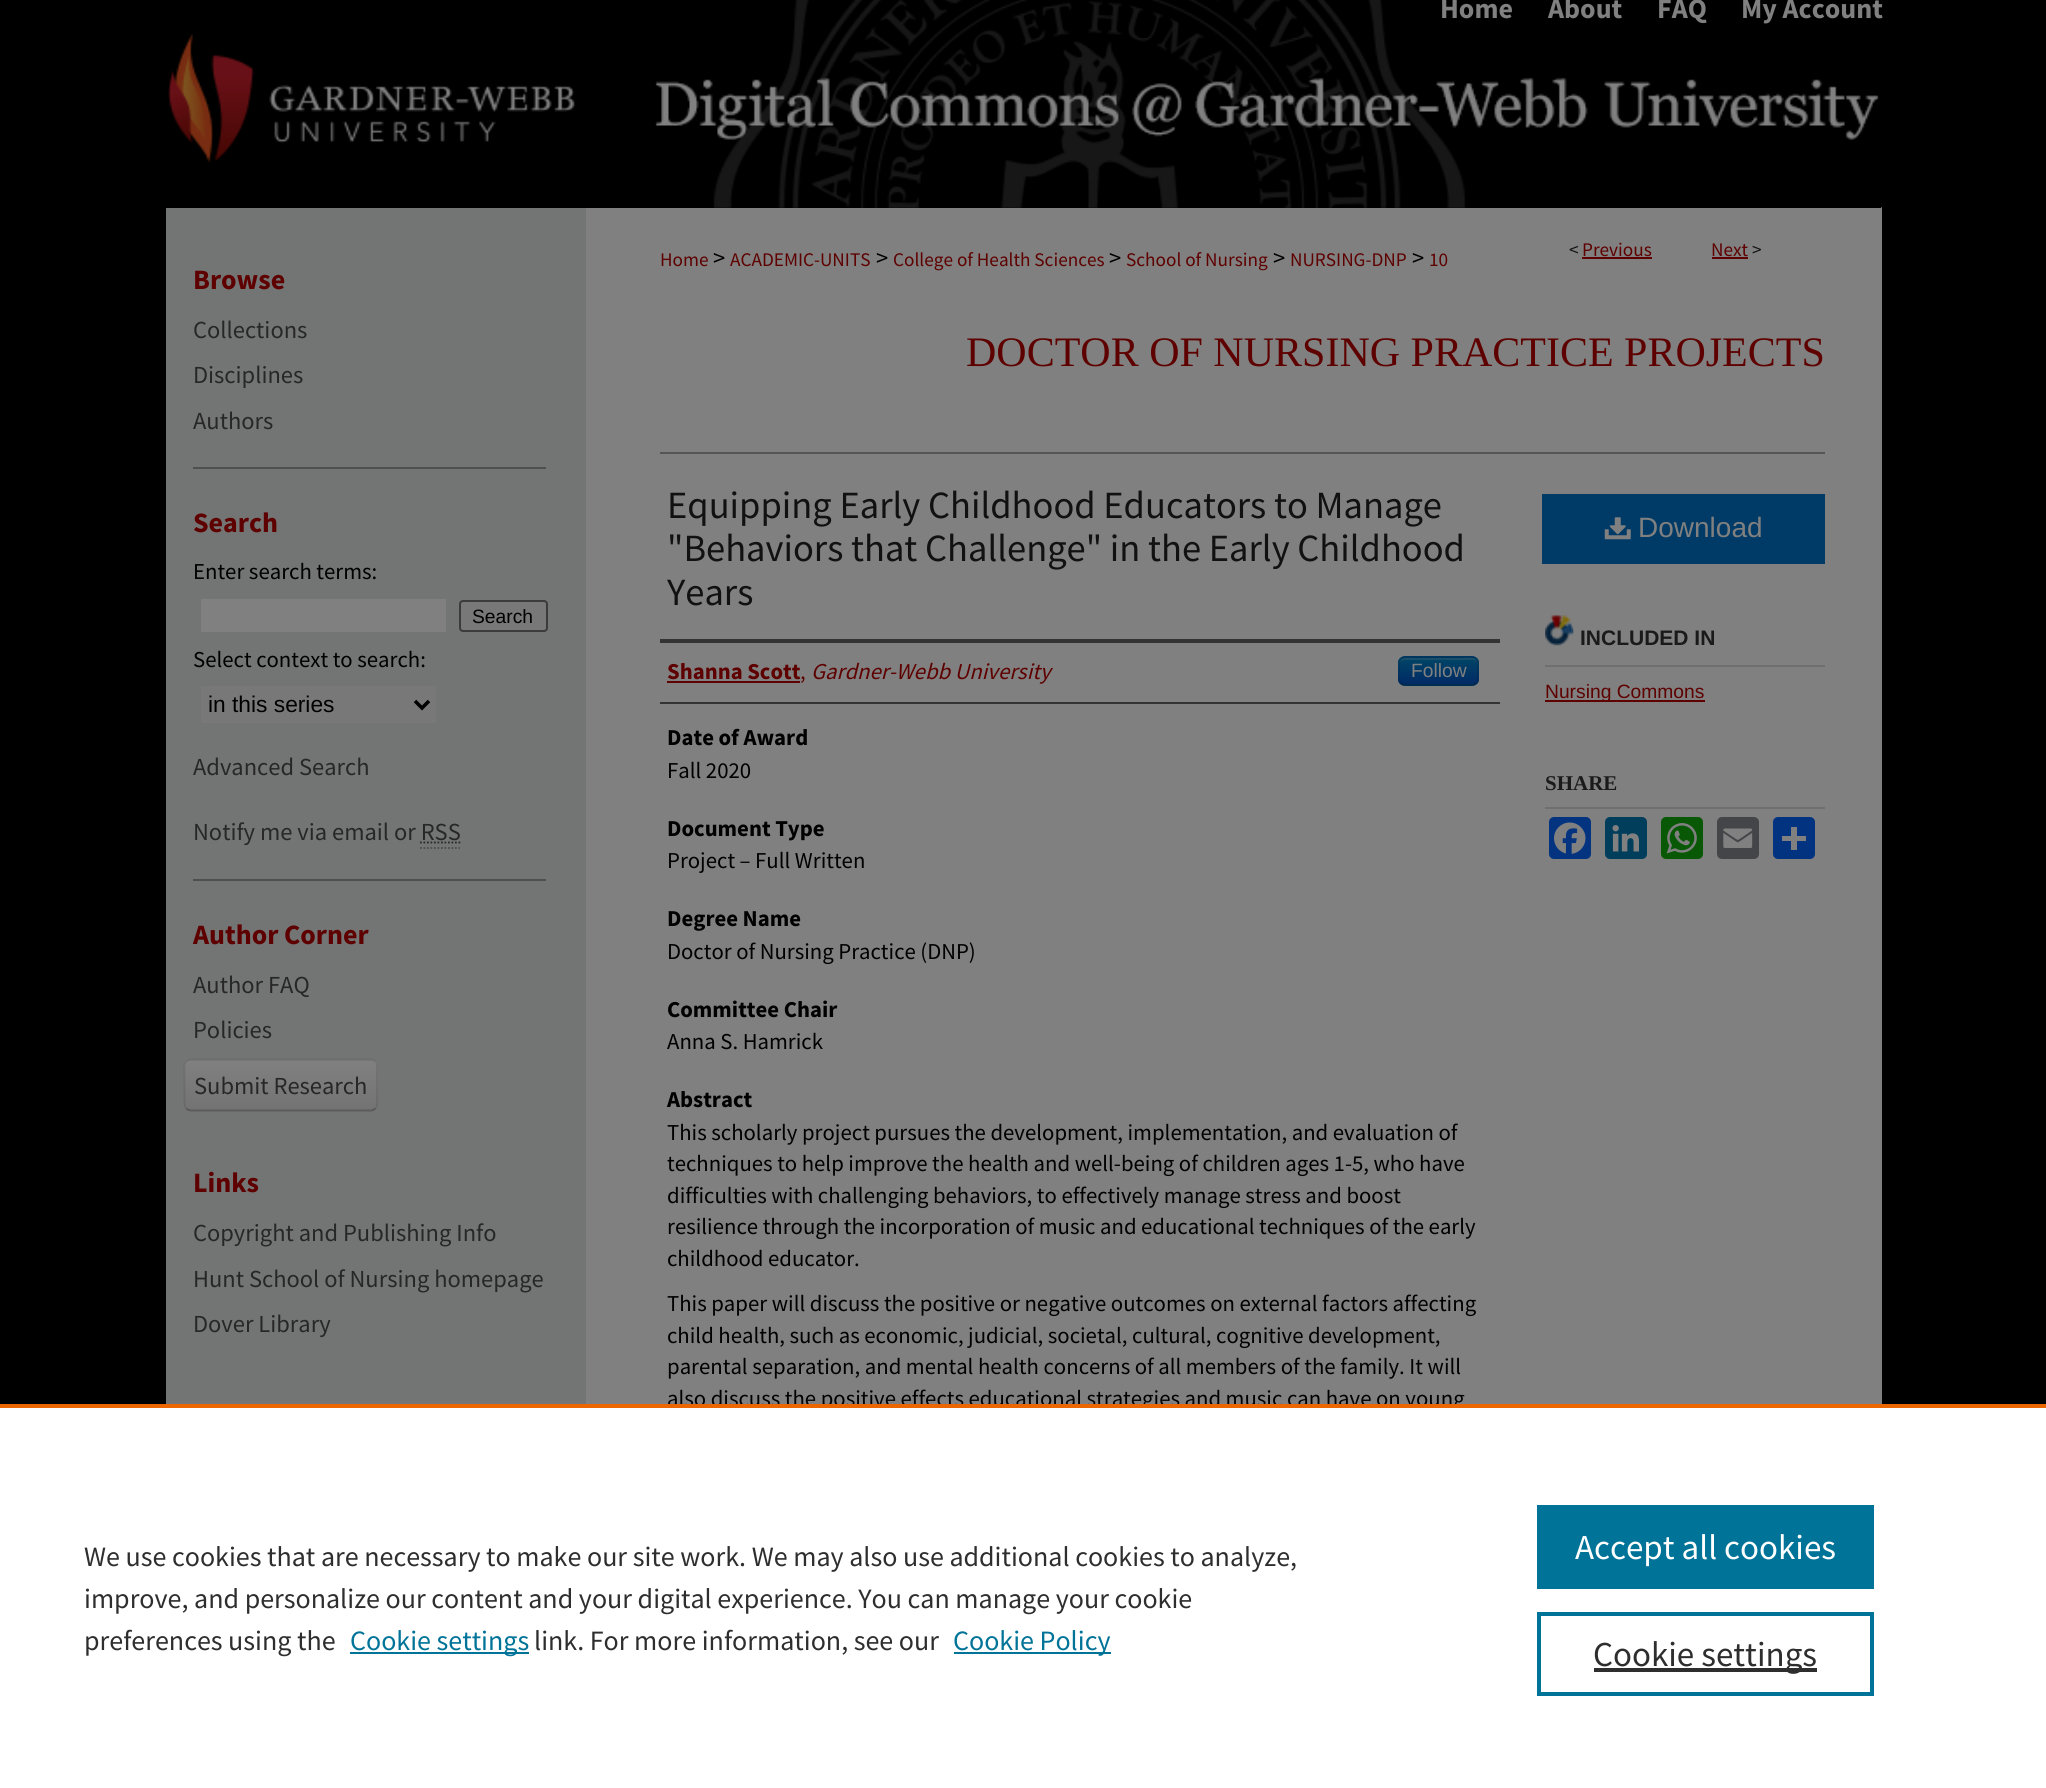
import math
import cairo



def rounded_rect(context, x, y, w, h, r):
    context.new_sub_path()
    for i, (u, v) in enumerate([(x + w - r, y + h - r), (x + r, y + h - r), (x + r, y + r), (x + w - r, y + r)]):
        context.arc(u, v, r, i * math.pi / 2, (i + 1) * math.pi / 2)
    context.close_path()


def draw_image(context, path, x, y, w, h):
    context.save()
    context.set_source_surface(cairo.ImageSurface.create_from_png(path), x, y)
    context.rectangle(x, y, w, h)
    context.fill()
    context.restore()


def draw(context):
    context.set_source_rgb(0, 0, 0)
    context.paint()
    draw_image(context, "images/1.png", 189, 0, 1196, 38)
    context.set_source_rgb(128 / 255, 128 / 255, 128 / 255)
    context.rectangle(586, 207, 1296, 1197)
    context.fill()
    context.set_source_rgb(0, 0, 0)
    context.rectangle(586, 207, 1295, 1)
    context.fill()
    draw_image(context, "images/2.png", 167, 38, 1715, 170)
    context.set_source_rgb(115 / 255, 116 / 255, 116 / 255)
    context.rectangle(166, 208, 420, 1196)
    context.fill()
    context.set_source_rgb(79 / 255, 79 / 255, 79 / 255)
    context.rectangle(193, 467, 353, 2)
    context.fill()
    context.set_source_rgb(128 / 255, 128 / 255, 128 / 255)
    context.rectangle(201, 599, 245, 33)
    context.fill()
    context.set_source_rgb(120 / 255, 120 / 255, 120 / 255)
    rounded_rect(context, 460, 601, 87, 30, 3)
    context.fill_preserve()
    context.set_source_rgb(59 / 255, 59 / 255, 59 / 255)
    context.stroke()
    context.set_source_rgb(120 / 255, 120 / 255, 120 / 255)
    context.rectangle(201, 686, 235, 37)
    context.fill()
    context.new_path()
    context.move_to(415, 701)
    context.line_to(422, 708)
    context.line_to(429, 701)
    context.set_source_rgb(0, 0, 0)
    context.set_line_width(3.5)
    context.stroke()
    context.new_path()
    context.move_to(420, 842.5)
    context.line_to(460.5, 842.5)
    context.set_source_rgb(39 / 255, 39 / 255, 39 / 255)
    context.set_line_width(1.8)
    context.set_dash([1.75, 1.75])
    context.stroke()
    context.new_path()
    context.move_to(420, 848)
    context.line_to(460, 848)
    context.set_source_rgb(77 / 255, 77 / 255, 77 / 255)
    context.stroke()
    context.set_source_rgb(79 / 255, 79 / 255, 79 / 255)
    context.rectangle(193, 879, 353, 2)
    context.fill()
    context.set_source_rgb(123 / 255, 123 / 255, 123 / 255)
    rounded_rect(context, 184, 1059, 194, 52, 7)
    context.fill()
    context.save()
    rounded_rect(context, 184, 1059, 194, 52, 7)
    context.clip()
    gradient = cairo.LinearGradient(281, 1061, 281, 1110)
    gradient.add_color_stop_rgba(0, 128 / 255, 128 / 255, 128 / 255, 1)
    gradient.add_color_stop_rgba(1, 115 / 255, 115 / 255, 115 / 255, 1)
    context.set_source(gradient)
    context.rectangle(184, 1061, 194, 49)
    context.fill()
    context.restore()
    context.new_path()
    context.move_to(375.5, 1108.5)
    context.curve_to(374, 1109.5, 372.5, 1110.5, 371, 1110.5)
    context.line_to(191, 1110.5)
    context.curve_to(189, 1110.5, 187.5, 1109.5, 186.5, 1108.5)
    context.set_source_rgba(0, 0, 0, 0.25)
    context.set_dash([])
    context.stroke()
    context.new_path()
    context.move_to(186.5, 1108.5)
    context.curve_to(185.5, 1107.5, 184.5, 1106, 184.5, 1104)
    context.line_to(184.5, 1066)
    context.curve_to(184.5, 1064, 185.5, 1062.5, 186.5, 1061.5)
    context.curve_to(187.5, 1060.5, 189, 1059.5, 191, 1059.5)
    context.line_to(371, 1059.5)
    context.curve_to(372.5, 1059.5, 374, 1060.5, 375.5, 1061.5)
    context.curve_to(376.5, 1062.5, 377, 1064, 377, 1066)
    context.line_to(377, 1104)
    context.curve_to(377, 1106, 376.5, 1107.5, 375.5, 1108.5)
    context.set_source_rgba(0, 0, 0, 0.1)
    context.stroke()
    context.set_source_rgb(94 / 255, 0, 0)
    context.rectangle(1582, 257, 70, 2)
    context.fill()
    context.rectangle(1712, 257, 36, 2)
    context.fill()
    context.set_source_rgb(85 / 255, 85 / 255, 85 / 255)
    context.rectangle(660, 452, 1165, 2)
    context.fill()
    context.set_source_rgb(51 / 255, 51 / 255, 51 / 255)
    context.rectangle(660, 639, 840, 4)
    context.fill()
    context.rectangle(660, 702, 840, 2)
    context.fill()
    context.set_source_rgb(94 / 255, 0, 0)
    context.rectangle(667, 681, 133, 2)
    context.fill()
    context.set_source_rgb(0, 58 / 255, 102 / 255)
    rounded_rect(context, 1398, 656, 81, 30, 7)
    context.fill()
    context.save()
    rounded_rect(context, 1398, 656, 81, 30, 7)
    context.clip()
    gradient = cairo.LinearGradient(1439, 658, 1439, 684)
    gradient.add_color_stop_rgba(0, 0, 68 / 255, 102 / 255, 1)
    gradient.add_color_stop_rgba(1, 0, 43 / 255, 102 / 255, 1)
    context.set_source(gradient)
    context.rectangle(1398, 658, 81, 26)
    context.fill()
    context.restore()
    context.set_source_rgba(128 / 255, 128 / 255, 128 / 255, 0.2)
    context.new_path()
    context.move_to(1405, 660)
    context.line_to(1472, 660)
    context.curve_to(1475, 660, 1477, 662, 1477, 665)
    context.curve_to(1477, 655, 1469, 658, 1461, 658)
    context.line_to(1416, 658)
    context.curve_to(1408, 658, 1400, 655, 1400, 665)
    context.curve_to(1400, 662, 1402, 660, 1405, 660)
    context.close_path()
    context.fill()
    context.new_path()
    context.move_to(1476, 683.5)
    context.curve_to(1475, 684.5, 1473.5, 685, 1472, 685)
    context.line_to(1405, 685)
    context.curve_to(1403.5, 685, 1402, 684.5, 1401, 683.5)
    context.set_source_rgba(0, 0, 0, 0.25)
    context.stroke()
    context.new_path()
    context.move_to(1401, 683.5)
    context.curve_to(1398, 680.5, 1399, 675, 1399, 671)
    context.curve_to(1399, 655.5, 1400, 657, 1416.5, 657)
    context.line_to(1460.5, 657)
    context.curve_to(1477, 657, 1478, 655.5, 1478, 671)
    context.curve_to(1478, 675, 1479, 680.5, 1476, 683.5)
    context.set_source_rgba(0, 0, 0, 0.1)
    context.stroke()
    context.set_source_rgb(0, 58 / 255, 102 / 255)
    context.rectangle(1542, 494, 283, 70)
    context.fill()
    draw_image(context, "images/3.png", 1604, 517, 27, 23)
    draw_image(context, "images/4.png", 1545, 615, 29, 31)
    context.set_source_rgb(111 / 255, 111 / 255, 111 / 255)
    context.rectangle(1545, 665, 280, 2)
    context.fill()
    context.set_source_rgb(94 / 255, 0, 0)
    context.rectangle(1545, 700, 160, 2)
    context.fill()
    context.set_source_rgb(111 / 255, 111 / 255, 111 / 255)
    context.rectangle(1545, 807, 280, 2)
    context.fill()
    context.set_source_rgb(4 / 255, 51 / 255, 128 / 255)
    rounded_rect(context, 1549, 817, 42, 42, 5)
    context.fill()
    draw_image(context, "images/5.png", 1554, 822, 32, 32)
    context.set_source_rgb(0, 62 / 255, 91 / 255)
    rounded_rect(context, 1605, 817, 42, 42, 5)
    context.fill()
    draw_image(context, "images/6.png", 1612, 825, 27, 27)
    context.set_source_rgb(9 / 255, 88 / 255, 5 / 255)
    rounded_rect(context, 1661, 817, 42, 42, 5)
    context.fill()
    draw_image(context, "images/7.png", 1666, 823, 31, 31)
    context.set_source_rgb(68 / 255, 69 / 255, 72 / 255)
    rounded_rect(context, 1717, 817, 42, 42, 5)
    context.fill()
    draw_image(context, "images/8.png", 1723, 828, 30, 20)
    context.set_source_rgb(1 / 255, 51 / 255, 128 / 255)
    rounded_rect(context, 1773, 817, 42, 42, 5)
    context.fill()
    context.set_source_rgb(128 / 255, 128 / 255, 128 / 255)
    context.rectangle(1791, 827, 6, 23)
    context.fill()
    context.rectangle(1782, 836, 24, 5)
    context.fill()
    context.select_font_face("Source Sans Pro", cairo.FontSlant.NORMAL, cairo.FontWeight.BOLD)
    context.set_font_size(28)
    context.move_to(1440, 18)
    context.show_text("Home")
    context.move_to(1548, 18)
    context.show_text("About")
    context.move_to(1657, 18)
    context.show_text("FAQ")
    context.move_to(1741, 18)
    context.show_text("My Account")
    context.set_source_rgb(94 / 255, 0, 0)
    context.move_to(193, 289)
    context.show_text("Browse")
    context.select_font_face("Source Sans Pro")
    context.set_font_size(24.5)
    context.set_source_rgb(39 / 255, 39 / 255, 39 / 255)
    context.move_to(193, 338)
    context.show_text("Collections")
    context.move_to(193, 383)
    context.show_text("Disciplines")
    context.move_to(193, 429)
    context.show_text("Authors")
    context.select_font_face("Source Sans Pro", cairo.FontSlant.NORMAL, cairo.FontWeight.BOLD)
    context.set_font_size(28)
    context.set_source_rgb(94 / 255, 0, 0)
    context.move_to(193, 532)
    context.show_text("Search")
    context.select_font_face("Source Sans Pro")
    context.set_font_size(22.75)
    context.set_source_rgb(0, 0, 0)
    context.move_to(193, 579)
    context.show_text("Enter search terms:")
    context.select_font_face("Liberation Sans")
    context.set_font_size(19.25)
    context.move_to(472, 623)
    context.show_text("Search")
    context.select_font_face("Source Sans Pro")
    context.set_font_size(22.75)
    context.move_to(193, 667)
    context.show_text("Select context to search:")
    context.select_font_face("Liberation Sans")
    context.move_to(208, 712)
    context.show_text("in this series")
    context.select_font_face("Source Sans Pro")
    context.set_font_size(24.5)
    context.set_source_rgb(39 / 255, 39 / 255, 39 / 255)
    context.move_to(193, 775)
    context.show_text("Advanced Search")
    context.move_to(193, 840)
    context.show_text("Notify me via email or RSS")
    context.select_font_face("Source Sans Pro", cairo.FontSlant.NORMAL, cairo.FontWeight.BOLD)
    context.set_font_size(28)
    context.set_source_rgb(94 / 255, 0, 0)
    context.move_to(193, 944)
    context.show_text("Author Corner")
    context.select_font_face("Source Sans Pro")
    context.set_font_size(24.5)
    context.set_source_rgb(39 / 255, 39 / 255, 39 / 255)
    context.move_to(193, 993)
    context.show_text("Author FAQ")
    context.move_to(193, 1038)
    context.show_text("Policies")
    context.move_to(194, 1094)
    context.show_text("Submit Research")
    context.select_font_face("Source Sans Pro", cairo.FontSlant.NORMAL, cairo.FontWeight.BOLD)
    context.set_font_size(28)
    context.set_source_rgb(94 / 255, 0, 0)
    context.move_to(193, 1192)
    context.show_text("Links")
    context.select_font_face("Source Sans Pro")
    context.set_font_size(24.5)
    context.set_source_rgb(39 / 255, 39 / 255, 39 / 255)
    context.move_to(193, 1241)
    context.show_text("Copyright and Publishing Info")
    context.move_to(193, 1287)
    context.show_text("Hunt School of Nursing homepage")
    context.move_to(193, 1332)
    context.show_text("Dover Library")
    context.set_font_size(19.25)
    context.set_source_rgb(17 / 255, 17 / 255, 17 / 255)
    context.move_to(1569, 256)
    context.show_text("<")
    context.set_source_rgb(94 / 255, 0, 0)
    context.move_to(1582, 256)
    context.show_text("Previous")
    context.move_to(1711, 256)
    context.show_text("Next")
    context.set_source_rgb(17 / 255, 17 / 255, 17 / 255)
    context.move_to(1752, 256)
    context.show_text(">")
    context.set_source_rgb(94 / 255, 0, 0)
    context.move_to(660, 266)
    context.show_text("Home")
    context.set_font_size(24.5)
    context.set_source_rgb(0, 0, 0)
    context.move_to(713, 266)
    context.show_text(">")
    context.set_font_size(19.25)
    context.set_source_rgb(94 / 255, 0, 0)
    context.move_to(730, 266)
    context.show_text("ACADEMIC-UNITS")
    context.set_font_size(24.5)
    context.set_source_rgb(0, 0, 0)
    context.move_to(876, 266)
    context.show_text(">")
    context.set_font_size(19.25)
    context.set_source_rgb(94 / 255, 0, 0)
    context.move_to(893, 266)
    context.show_text("College of Health Sciences")
    context.set_font_size(24.5)
    context.set_source_rgb(0, 0, 0)
    context.move_to(1109, 266)
    context.show_text(">")
    context.set_font_size(19.25)
    context.set_source_rgb(94 / 255, 0, 0)
    context.move_to(1126, 266)
    context.show_text("School of Nursing")
    context.set_font_size(24.5)
    context.set_source_rgb(0, 0, 0)
    context.move_to(1273, 266)
    context.show_text(">")
    context.set_font_size(19.25)
    context.set_source_rgb(94 / 255, 0, 0)
    context.move_to(1290, 266)
    context.show_text("NURSING-DNP")
    context.set_font_size(24.5)
    context.set_source_rgb(0, 0, 0)
    context.move_to(1412, 266)
    context.show_text(">")
    context.set_font_size(19.25)
    context.set_source_rgb(94 / 255, 0, 0)
    context.move_to(1429, 266)
    context.show_text("10")
    context.select_font_face("Liberation Serif")
    context.set_font_size(42)
    context.move_to(966, 366)
    context.show_text("DOCTOR OF NURSING PRACTICE PROJECTS")
    context.select_font_face("Source Sans Pro")
    context.set_font_size(38.5)
    context.set_source_rgb(17 / 255, 17 / 255, 17 / 255)
    context.move_to(667, 518)
    context.show_text("Equipping Early Childhood Educators to Manage")
    context.move_to(667, 561)
    context.show_text("\"Behaviors that Challenge\" in the Early Childhood")
    context.move_to(667, 605)
    context.show_text("Years")
    context.select_font_face("Source Sans Pro", cairo.FontSlant.NORMAL, cairo.FontWeight.BOLD)
    context.set_font_size(22.75)
    context.set_source_rgb(94 / 255, 0, 0)
    context.move_to(667, 679)
    context.show_text("Shanna Scott")
    context.select_font_face("Source Sans Pro")
    context.move_to(800, 679)
    context.show_text(",")
    context.select_font_face("Source Sans Pro", cairo.FontSlant.ITALIC)
    context.move_to(811, 679)
    context.show_text("Gardner-Webb University")
    context.select_font_face("Liberation Sans")
    context.set_font_size(19.25)
    context.set_source_rgb(128 / 255, 128 / 255, 128 / 255)
    context.move_to(1411, 677)
    context.show_text("Follow")
    context.select_font_face("Source Sans Pro", cairo.FontSlant.NORMAL, cairo.FontWeight.BOLD)
    context.set_font_size(22.75)
    context.set_source_rgb(0, 0, 0)
    context.move_to(667, 745)
    context.show_text("Date of Award")
    context.select_font_face("Source Sans Pro")
    context.move_to(667, 778)
    context.show_text("Fall 2020")
    context.select_font_face("Source Sans Pro", cairo.FontSlant.NORMAL, cairo.FontWeight.BOLD)
    context.move_to(667, 836)
    context.show_text("Document Type")
    context.select_font_face("Source Sans Pro")
    context.move_to(667, 868)
    context.show_text("Project – Full Written")
    context.select_font_face("Source Sans Pro", cairo.FontSlant.NORMAL, cairo.FontWeight.BOLD)
    context.move_to(667, 926)
    context.show_text("Degree Name")
    context.select_font_face("Source Sans Pro")
    context.move_to(667, 959)
    context.show_text("Doctor of Nursing Practice (DNP)")
    context.select_font_face("Source Sans Pro", cairo.FontSlant.NORMAL, cairo.FontWeight.BOLD)
    context.move_to(667, 1017)
    context.show_text("Committee Chair")
    context.select_font_face("Source Sans Pro")
    context.move_to(667, 1049)
    context.show_text("Anna S. Hamrick")
    context.select_font_face("Source Sans Pro", cairo.FontSlant.NORMAL, cairo.FontWeight.BOLD)
    context.move_to(667, 1107)
    context.show_text("Abstract")
    context.select_font_face("Source Sans Pro")
    context.move_to(667, 1140)
    context.show_text("This scholarly project pursues the development, implementation, and evaluation of")
    context.move_to(667, 1171)
    context.show_text("techniques to help improve the health and well-being of children ages 1-5, who have")
    context.move_to(667, 1203)
    context.show_text("difficulties with challenging behaviors, to effectively manage stress and boost")
    context.move_to(667, 1234)
    context.show_text("resilience through the incorporation of music and educational techniques of the early")
    context.move_to(667, 1266)
    context.show_text("childhood educator.")
    context.move_to(667, 1311)
    context.show_text("This paper will discuss the positive or negative outcomes on external factors affecting")
    context.move_to(667, 1343)
    context.show_text("child health, such as economic, judicial, societal, cultural, cognitive development,")
    context.move_to(667, 1374)
    context.show_text("parental separation, and mental health concerns of all members of the family. It will")
    context.move_to(667, 1406)
    context.show_text("also discuss the positive effects educational strategies and music can have on young")
    context.select_font_face("Liberation Sans")
    context.set_font_size(28)
    context.set_source_rgb(128 / 255, 128 / 255, 128 / 255)
    context.move_to(1638, 537)
    context.show_text("Download")
    context.select_font_face("Liberation Sans", cairo.FontSlant.NORMAL, cairo.FontWeight.BOLD)
    context.set_font_size(21)
    context.set_source_rgb(26 / 255, 26 / 255, 26 / 255)
    context.move_to(1580, 645)
    context.show_text("INCLUDED IN")
    context.select_font_face("Liberation Sans")
    context.set_font_size(19.25)
    context.set_source_rgb(94 / 255, 0, 0)
    context.move_to(1545, 698)
    context.show_text("Nursing Commons")
    context.select_font_face("Liberation Serif", cairo.FontSlant.NORMAL, cairo.FontWeight.BOLD)
    context.set_font_size(21)
    context.set_source_rgb(26 / 255, 26 / 255, 26 / 255)
    context.move_to(1545, 790)
    context.show_text("SHARE")
    context.set_source_rgb(1, 1, 1)
    context.rectangle(0, 1408, 2046, 380)
    context.fill()
    context.set_source_rgb(235 / 255, 101 / 255, 0)
    context.rectangle(0, 1404, 2046, 4)
    context.fill()
    context.select_font_face("Source Sans Pro")
    context.set_font_size(28)
    context.set_source_rgb(46 / 255, 46 / 255, 46 / 255)
    context.move_to(84, 1566)
    context.show_text("We use cookies that are necessary to make our site work. We may also use additional cookies to analyze,")
    context.move_to(84, 1608)
    context.show_text("improve, and personalize our content and your digital experience. You can manage your cookie")
    context.move_to(84, 1650)
    context.show_text("preferences using the")
    context.set_source_rgb(0, 115 / 255, 152 / 255)
    context.rectangle(350, 1652, 179, 2)
    context.fill()
    context.move_to(350, 1650)
    context.show_text("Cookie settings")
    context.set_source_rgb(46 / 255, 46 / 255, 46 / 255)
    context.move_to(534, 1650)
    context.show_text("link. For more information, see our")
    context.set_source_rgb(0, 115 / 255, 152 / 255)
    context.rectangle(954, 1652, 157, 2)
    context.fill()
    context.move_to(953, 1650)
    context.show_text("Cookie Policy")
    context.rectangle(1537, 1505, 337, 84)
    context.fill()
    context.set_font_size(35)
    context.set_source_rgb(1, 1, 1)
    context.move_to(1575, 1559)
    context.show_text("Accept all cookies")
    context.rectangle(1539, 1614, 333, 80)
    context.set_source_rgb(0, 115 / 255, 152 / 255)
    context.set_line_width(4)
    context.stroke()
    context.set_source_rgb(46 / 255, 46 / 255, 46 / 255)
    context.rectangle(1594, 1668, 223, 4)
    context.fill()
    context.move_to(1593, 1666)
    context.show_text("Cookie settings")


surface = cairo.ImageSurface(cairo.Format.RGB24, 2046, 1788)
context = cairo.Context(surface)
options = cairo.FontOptions()
options.set_hint_metrics(cairo.HintMetrics.OFF)
options.set_hint_style(cairo.HintStyle.NONE)
context.set_font_options(options)
context.set_miter_limit(4)
draw(context)
surface.write_to_png("out.png")
